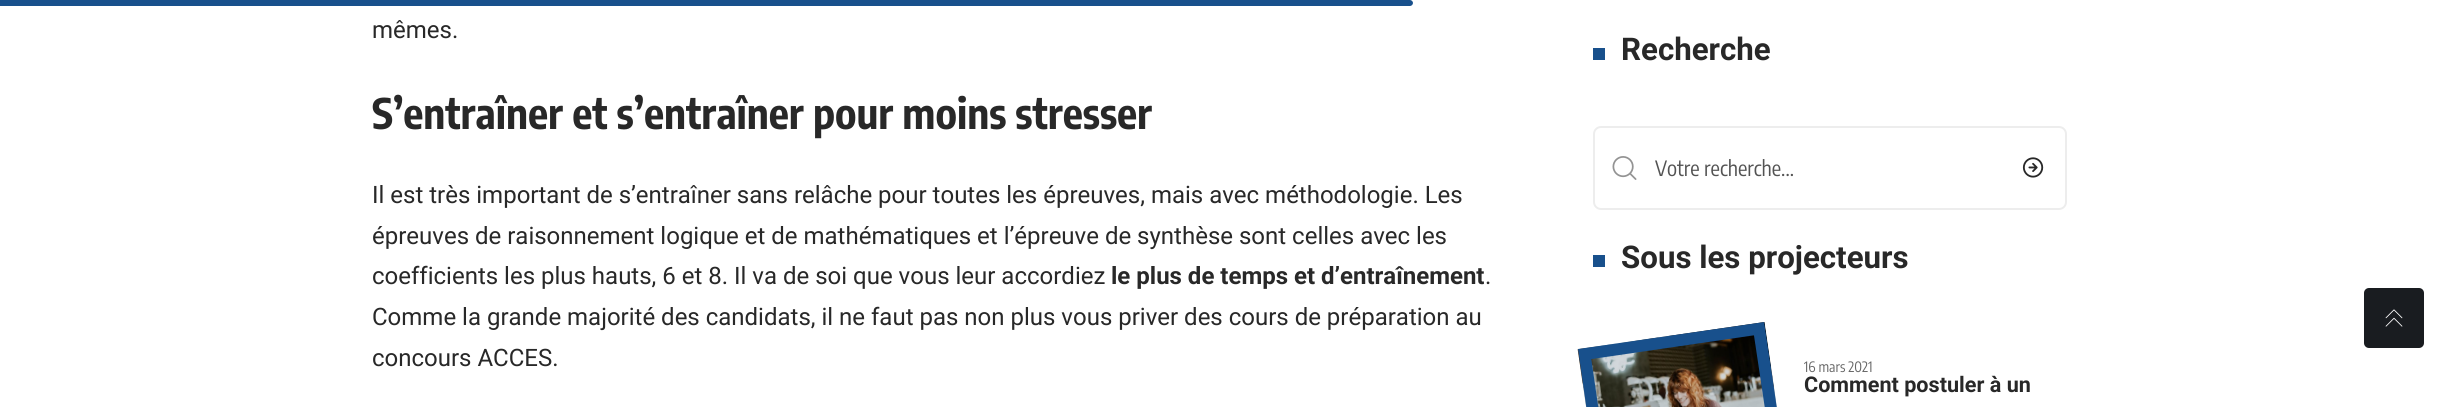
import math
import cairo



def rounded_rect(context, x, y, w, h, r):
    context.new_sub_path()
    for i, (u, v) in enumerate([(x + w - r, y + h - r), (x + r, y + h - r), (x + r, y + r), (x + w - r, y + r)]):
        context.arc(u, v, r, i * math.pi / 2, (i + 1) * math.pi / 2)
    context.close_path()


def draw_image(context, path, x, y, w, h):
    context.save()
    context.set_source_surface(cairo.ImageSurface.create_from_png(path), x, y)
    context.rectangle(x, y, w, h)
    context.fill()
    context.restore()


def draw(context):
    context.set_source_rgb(1, 1, 1)
    context.paint()
    context.set_source_rgb(24 / 255, 80 / 255, 140 / 255)
    context.new_path()
    context.move_to(0, 0)
    context.line_to(1410, 0)
    context.curve_to(1411.5, 0, 1413, 1.5, 1413, 3)
    context.curve_to(1413, 4.5, 1411.5, 6, 1410, 6)
    context.line_to(0, 6)
    context.close_path()
    context.fill()
    context.rectangle(1593, 48, 12, 12)
    context.fill()
    rounded_rect(context, 1594, 127, 472, 82, 7)
    context.set_source_rgb(237 / 255, 237 / 255, 237 / 255)
    context.stroke()
    draw_image(context, "images/1.png", 1612, 156, 25, 24)
    draw_image(context, "images/2.png", 2022, 157, 22, 21)
    context.set_source_rgb(24 / 255, 80 / 255, 140 / 255)
    context.rectangle(1593, 255, 12, 12)
    context.fill()
    draw_image(context, "images/3.png", 1577, 322, 200, 85)
    context.save()
    context.new_path()
    context.move_to(1578, 349)
    context.line_to(1764.5, 322)
    context.line_to(1780.5, 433.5)
    context.line_to(1594, 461)
    context.close_path()
    context.clip()
    context.new_path()
    context.move_to(1584.5, 354)
    context.line_to(1759, 328.5)
    context.line_to(1774, 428.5)
    context.line_to(1599, 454)
    context.close_path()
    context.set_line_width(12)
    context.stroke()
    context.restore()
    context.set_source_rgb(25 / 255, 28 / 255, 32 / 255)
    rounded_rect(context, 2364, 288, 60, 60, 5)
    context.fill()
    draw_image(context, "images/4.png", 2385, 309, 18, 18)
    context.select_font_face("Roboto")
    context.set_font_size(24)
    context.set_source_rgb(40 / 255, 40 / 255, 40 / 255)
    context.move_to(372, 38)
    context.show_text("mêmes.")
    context.select_font_face("Encode Sans Condensed", cairo.FontSlant.NORMAL, cairo.FontWeight.BOLD)
    context.set_font_size(42)
    context.move_to(372, 129)
    context.show_text("S’entraîner et s’entraîner pour moins stresser")
    context.select_font_face("Roboto")
    context.set_font_size(24)
    context.move_to(372, 203)
    context.show_text("Il est très important de s’entraîner sans relâche pour toutes les épreuves, mais avec méthodologie. Les")
    context.move_to(372, 244)
    context.show_text("épreuves de raisonnement logique et de mathématiques et l’épreuve de synthèse sont celles avec les")
    context.move_to(372, 284)
    context.show_text("coefficients les plus hauts, 6 et 8. Il va de soi que vous leur accordiez")
    context.select_font_face("Roboto", cairo.FontSlant.NORMAL, cairo.FontWeight.BOLD)
    context.move_to(1111, 284)
    context.show_text("le plus de temps et d’entraînement")
    context.select_font_face("Roboto")
    context.move_to(1485, 284)
    context.show_text(".")
    context.move_to(372, 325)
    context.show_text("Comme la grande majorité des candidats, il ne faut pas non plus vous priver des cours de préparation au")
    context.move_to(372, 366)
    context.show_text("concours ACCES.")
    context.select_font_face("Roboto", cairo.FontSlant.NORMAL, cairo.FontWeight.BOLD)
    context.set_font_size(31.25)
    context.move_to(1621, 60)
    context.show_text("Recherche")
    context.select_font_face("Encode Sans Condensed")
    context.set_font_size(21)
    context.set_source_rgb(83 / 255, 83 / 255, 83 / 255)
    context.move_to(1655, 176)
    context.show_text("Votre recherche...")
    context.select_font_face("Roboto", cairo.FontSlant.NORMAL, cairo.FontWeight.BOLD)
    context.set_font_size(31.25)
    context.set_source_rgb(40 / 255, 40 / 255, 40 / 255)
    context.move_to(1621, 268)
    context.show_text("Sous les projecteurs")
    context.select_font_face("Encode Sans Condensed")
    context.set_font_size(14.25)
    context.set_source_rgb(102 / 255, 102 / 255, 102 / 255)
    context.move_to(1804, 372)
    context.show_text("16 mars 2021")
    context.select_font_face("Roboto", cairo.FontSlant.NORMAL, cairo.FontWeight.BOLD)
    context.set_font_size(21.6)
    context.set_source_rgb(40 / 255, 40 / 255, 40 / 255)
    context.move_to(1804, 392)
    context.show_text("Comment postuler à un")


surface = cairo.ImageSurface(cairo.Format.RGB24, 2454, 407)
context = cairo.Context(surface)
options = cairo.FontOptions()
options.set_hint_metrics(cairo.HintMetrics.OFF)
options.set_hint_style(cairo.HintStyle.NONE)
context.set_font_options(options)
context.set_miter_limit(4)
draw(context)
surface.write_to_png("out.png")
